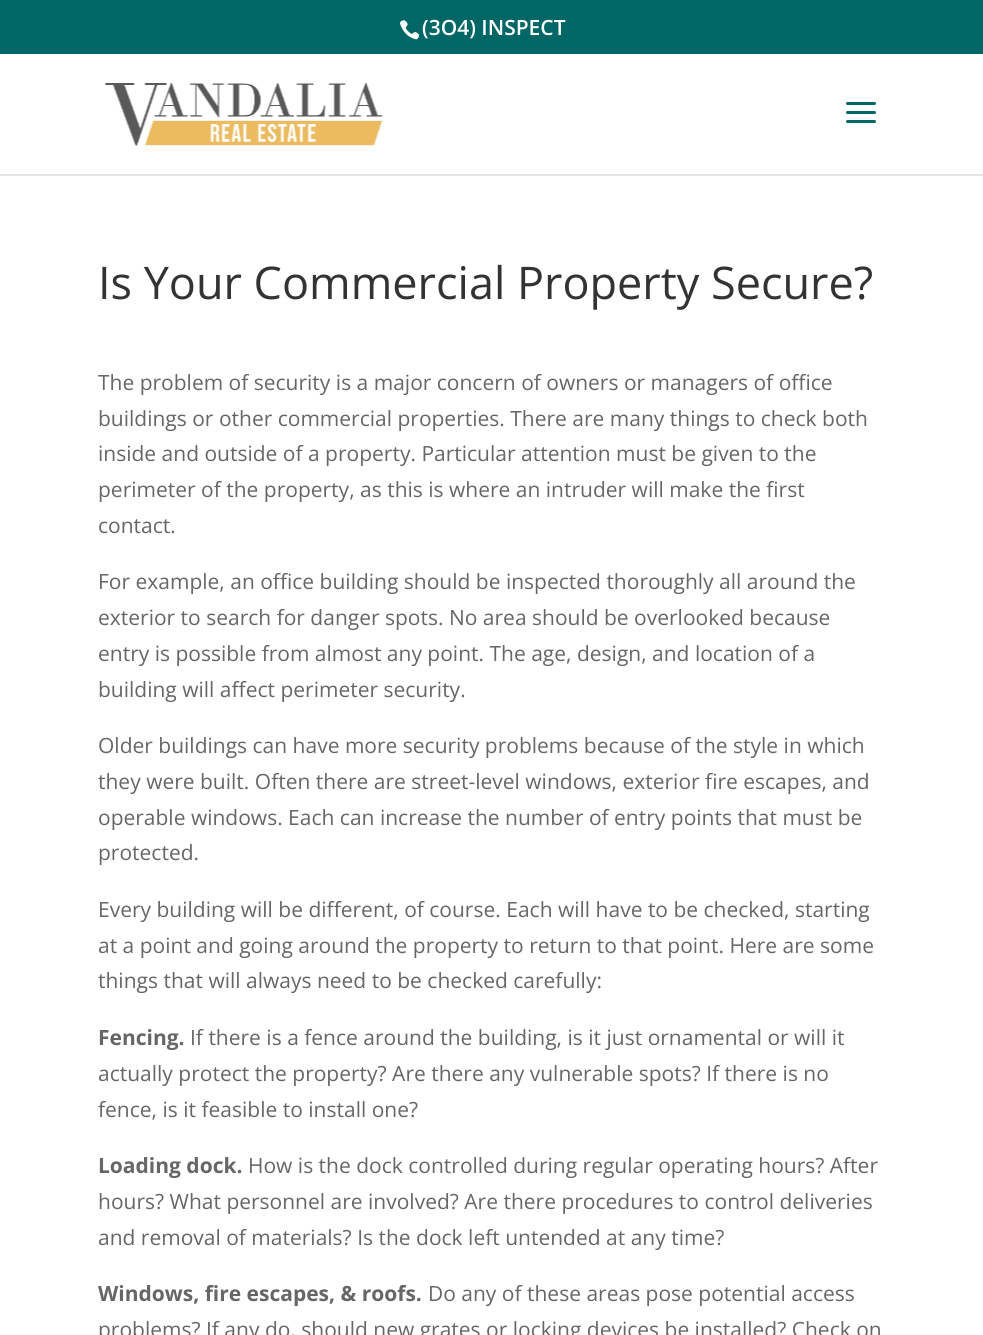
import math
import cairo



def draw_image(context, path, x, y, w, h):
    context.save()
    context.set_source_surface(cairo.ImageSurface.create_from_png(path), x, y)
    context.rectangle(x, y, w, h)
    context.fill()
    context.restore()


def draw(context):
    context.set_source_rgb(1, 1, 1)
    context.paint()
    context.set_source_rgb(0, 102 / 255, 102 / 255)
    context.rectangle(0, 0, 983, 54)
    context.fill()
    draw_image(context, "images/1.png", 399, 20, 21, 20)
    context.set_source_rgb(230 / 255, 230 / 255, 230 / 255)
    context.rectangle(0, 174, 983, 2)
    context.fill()
    draw_image(context, "images/2.png", 104, 83, 279, 63)
    draw_image(context, "images/3.png", 846, 102, 30, 21)
    context.select_font_face("Open Sans SemiBold")
    context.set_font_size(21)
    context.set_source_rgb(1, 1, 1)
    context.move_to(422, 35)
    context.show_text("(3O4) INSPECT")
    context.select_font_face("Open Sans")
    context.set_font_size(45)
    context.set_source_rgb(51 / 255, 51 / 255, 51 / 255)
    context.move_to(98, 299)
    context.show_text("Is Your Commercial Property Secure?")
    context.set_font_size(21)
    context.set_source_rgb(102 / 255, 102 / 255, 102 / 255)
    context.move_to(98, 390)
    context.show_text("The problem of security is a major concern of owners or managers of office")
    context.move_to(98, 426)
    context.show_text("buildings or other commercial properties. There are many things to check both")
    context.move_to(98, 461)
    context.show_text("inside and outside of a property. Particular attention must be given to the")
    context.move_to(98, 497)
    context.show_text("perimeter of the property, as this is where an intruder will make the first")
    context.move_to(98, 533)
    context.show_text("contact.")
    context.move_to(98, 589)
    context.show_text("For example, an office building should be inspected thoroughly all around the")
    context.move_to(98, 625)
    context.show_text("exterior to search for danger spots. No area should be overlooked because")
    context.move_to(98, 661)
    context.show_text("entry is possible from almost any point. The age, design, and location of a")
    context.move_to(98, 697)
    context.show_text("building will affect perimeter security.")
    context.move_to(98, 753)
    context.show_text("Older buildings can have more security problems because of the style in which")
    context.move_to(98, 789)
    context.show_text("they were built. Often there are street-level windows, exterior fire escapes, and")
    context.move_to(98, 825)
    context.show_text("operable windows. Each can increase the number of entry points that must be")
    context.move_to(98, 860)
    context.show_text("protected.")
    context.move_to(98, 917)
    context.show_text("Every building will be different, of course. Each will have to be checked, starting")
    context.move_to(98, 953)
    context.show_text("at a point and going around the property to return to that point. Here are some")
    context.move_to(98, 988)
    context.show_text("things that will always need to be checked carefully:")
    context.select_font_face("Open Sans", cairo.FontSlant.NORMAL, cairo.FontWeight.BOLD)
    context.move_to(98, 1045)
    context.show_text("Fencing.")
    context.select_font_face("Open Sans")
    context.move_to(190, 1045)
    context.show_text("If there is a fence around the building, is it just ornamental or will it")
    context.move_to(98, 1081)
    context.show_text("actually protect the property? Are there any vulnerable spots? If there is no")
    context.move_to(98, 1117)
    context.show_text("fence, is it feasible to install one?")
    context.select_font_face("Open Sans", cairo.FontSlant.NORMAL, cairo.FontWeight.BOLD)
    context.move_to(98, 1173)
    context.show_text("Loading dock.")
    context.select_font_face("Open Sans")
    context.move_to(248, 1173)
    context.show_text("How is the dock controlled during regular operating hours? After")
    context.move_to(98, 1209)
    context.show_text("hours? What personnel are involved? Are there procedures to control deliveries")
    context.move_to(98, 1245)
    context.show_text("and removal of materials? Is the dock left untended at any time?")
    context.select_font_face("Open Sans", cairo.FontSlant.NORMAL, cairo.FontWeight.BOLD)
    context.move_to(98, 1301)
    context.show_text("Windows, fire escapes, & roofs.")
    context.select_font_face("Open Sans")
    context.move_to(428, 1301)
    context.show_text("Do any of these areas pose potential access")
    context.move_to(98, 1337)
    context.show_text("problems? If any do, should new grates or locking devices be installed? Check on")


surface = cairo.ImageSurface(cairo.Format.RGB24, 983, 1335)
context = cairo.Context(surface)
options = cairo.FontOptions()
options.set_hint_metrics(cairo.HintMetrics.OFF)
options.set_hint_style(cairo.HintStyle.NONE)
context.set_font_options(options)
context.set_miter_limit(4)
draw(context)
surface.write_to_png("out.png")
